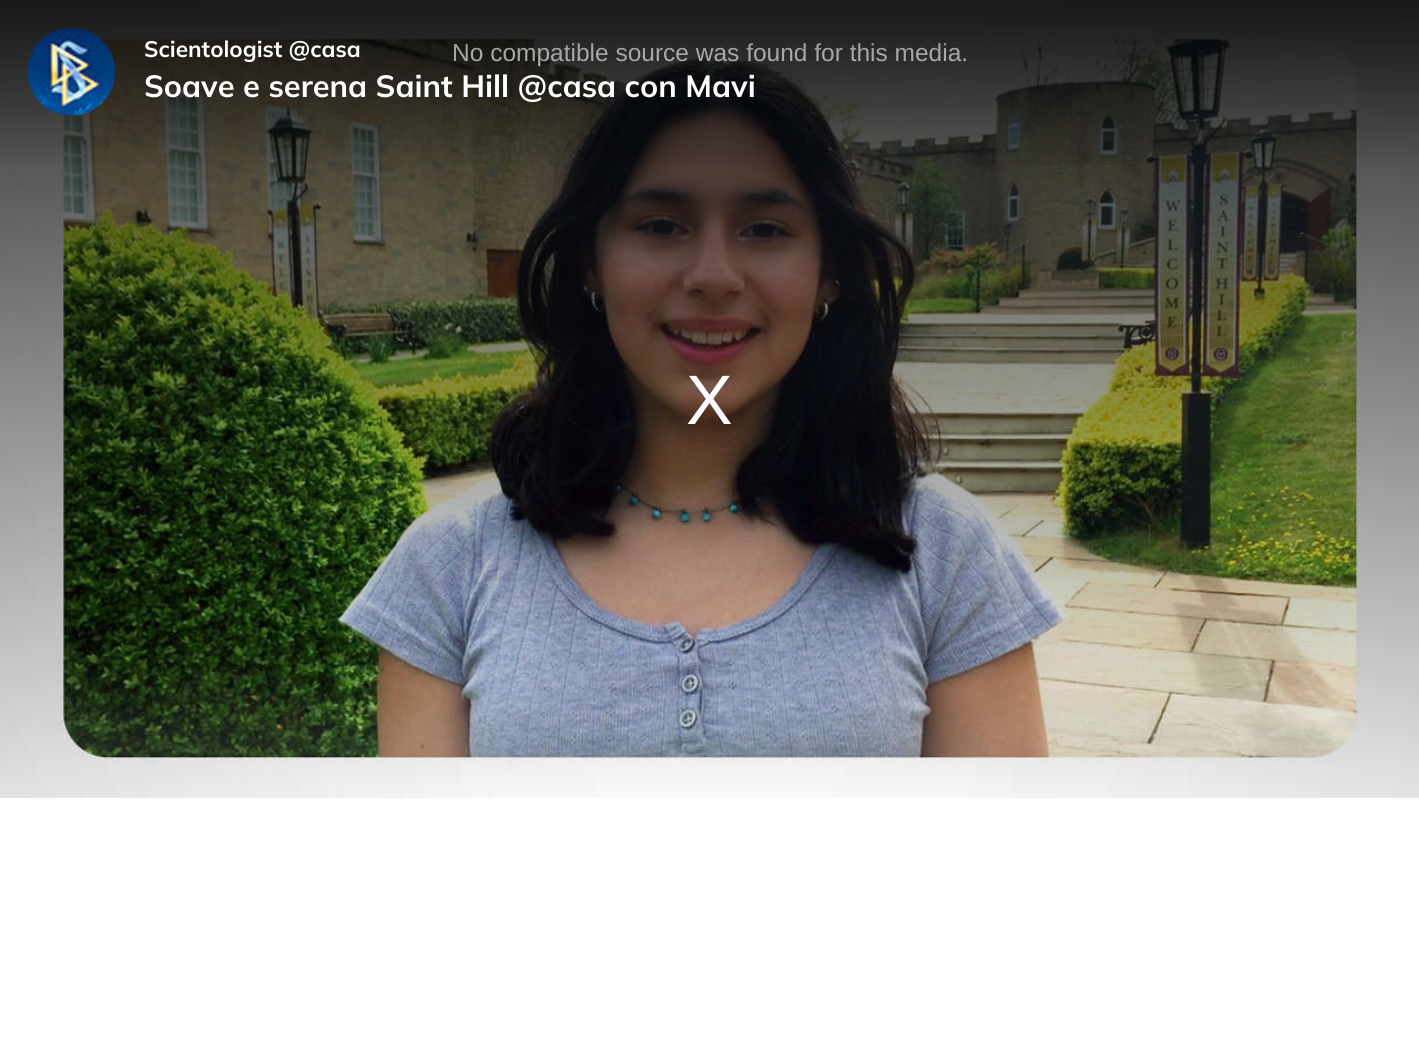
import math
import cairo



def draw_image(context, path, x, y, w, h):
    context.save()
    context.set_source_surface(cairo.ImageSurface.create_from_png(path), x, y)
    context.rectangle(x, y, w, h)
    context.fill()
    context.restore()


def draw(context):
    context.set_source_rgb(1, 1, 1)
    context.paint()
    draw_image(context, "images/1.png", 0, 0, 1419, 798)
    context.select_font_face("Liberation Sans")
    context.set_font_size(24.5)
    context.set_source_rgb(1, 1, 1)
    context.move_to(452, 61)
    context.show_text("No compatible source was found for this media.")
    gradient = cairo.LinearGradient(710, 0, 710, 175)
    gradient.add_color_stop_rgba(0, 0, 0, 0, 0.5)
    gradient.add_color_stop_rgba(1, 0, 0, 0, 0)
    context.set_source(gradient)
    context.rectangle(0, 0, 1419, 165)
    context.fill()
    draw_image(context, "images/2.png", 28, 28, 88, 88)
    context.select_font_face("Mulish", cairo.FontSlant.NORMAL, cairo.FontWeight.BOLD)
    context.set_font_size(30.75)
    context.set_source_rgb(1, 1, 1)
    context.move_to(144, 97)
    context.show_text("Soave e serena Saint Hill @casa con Mavi")
    context.set_font_size(22.5)
    context.move_to(144, 57)
    context.show_text("Scientologist @casa")
    context.select_font_face("Liberation Sans")
    context.set_font_size(70)
    context.move_to(686, 424)
    context.show_text("X")


surface = cairo.ImageSurface(cairo.Format.RGB24, 1419, 1045)
context = cairo.Context(surface)
options = cairo.FontOptions()
options.set_hint_metrics(cairo.HintMetrics.OFF)
options.set_hint_style(cairo.HintStyle.NONE)
context.set_font_options(options)
context.set_miter_limit(4)
draw(context)
surface.write_to_png("out.png")
